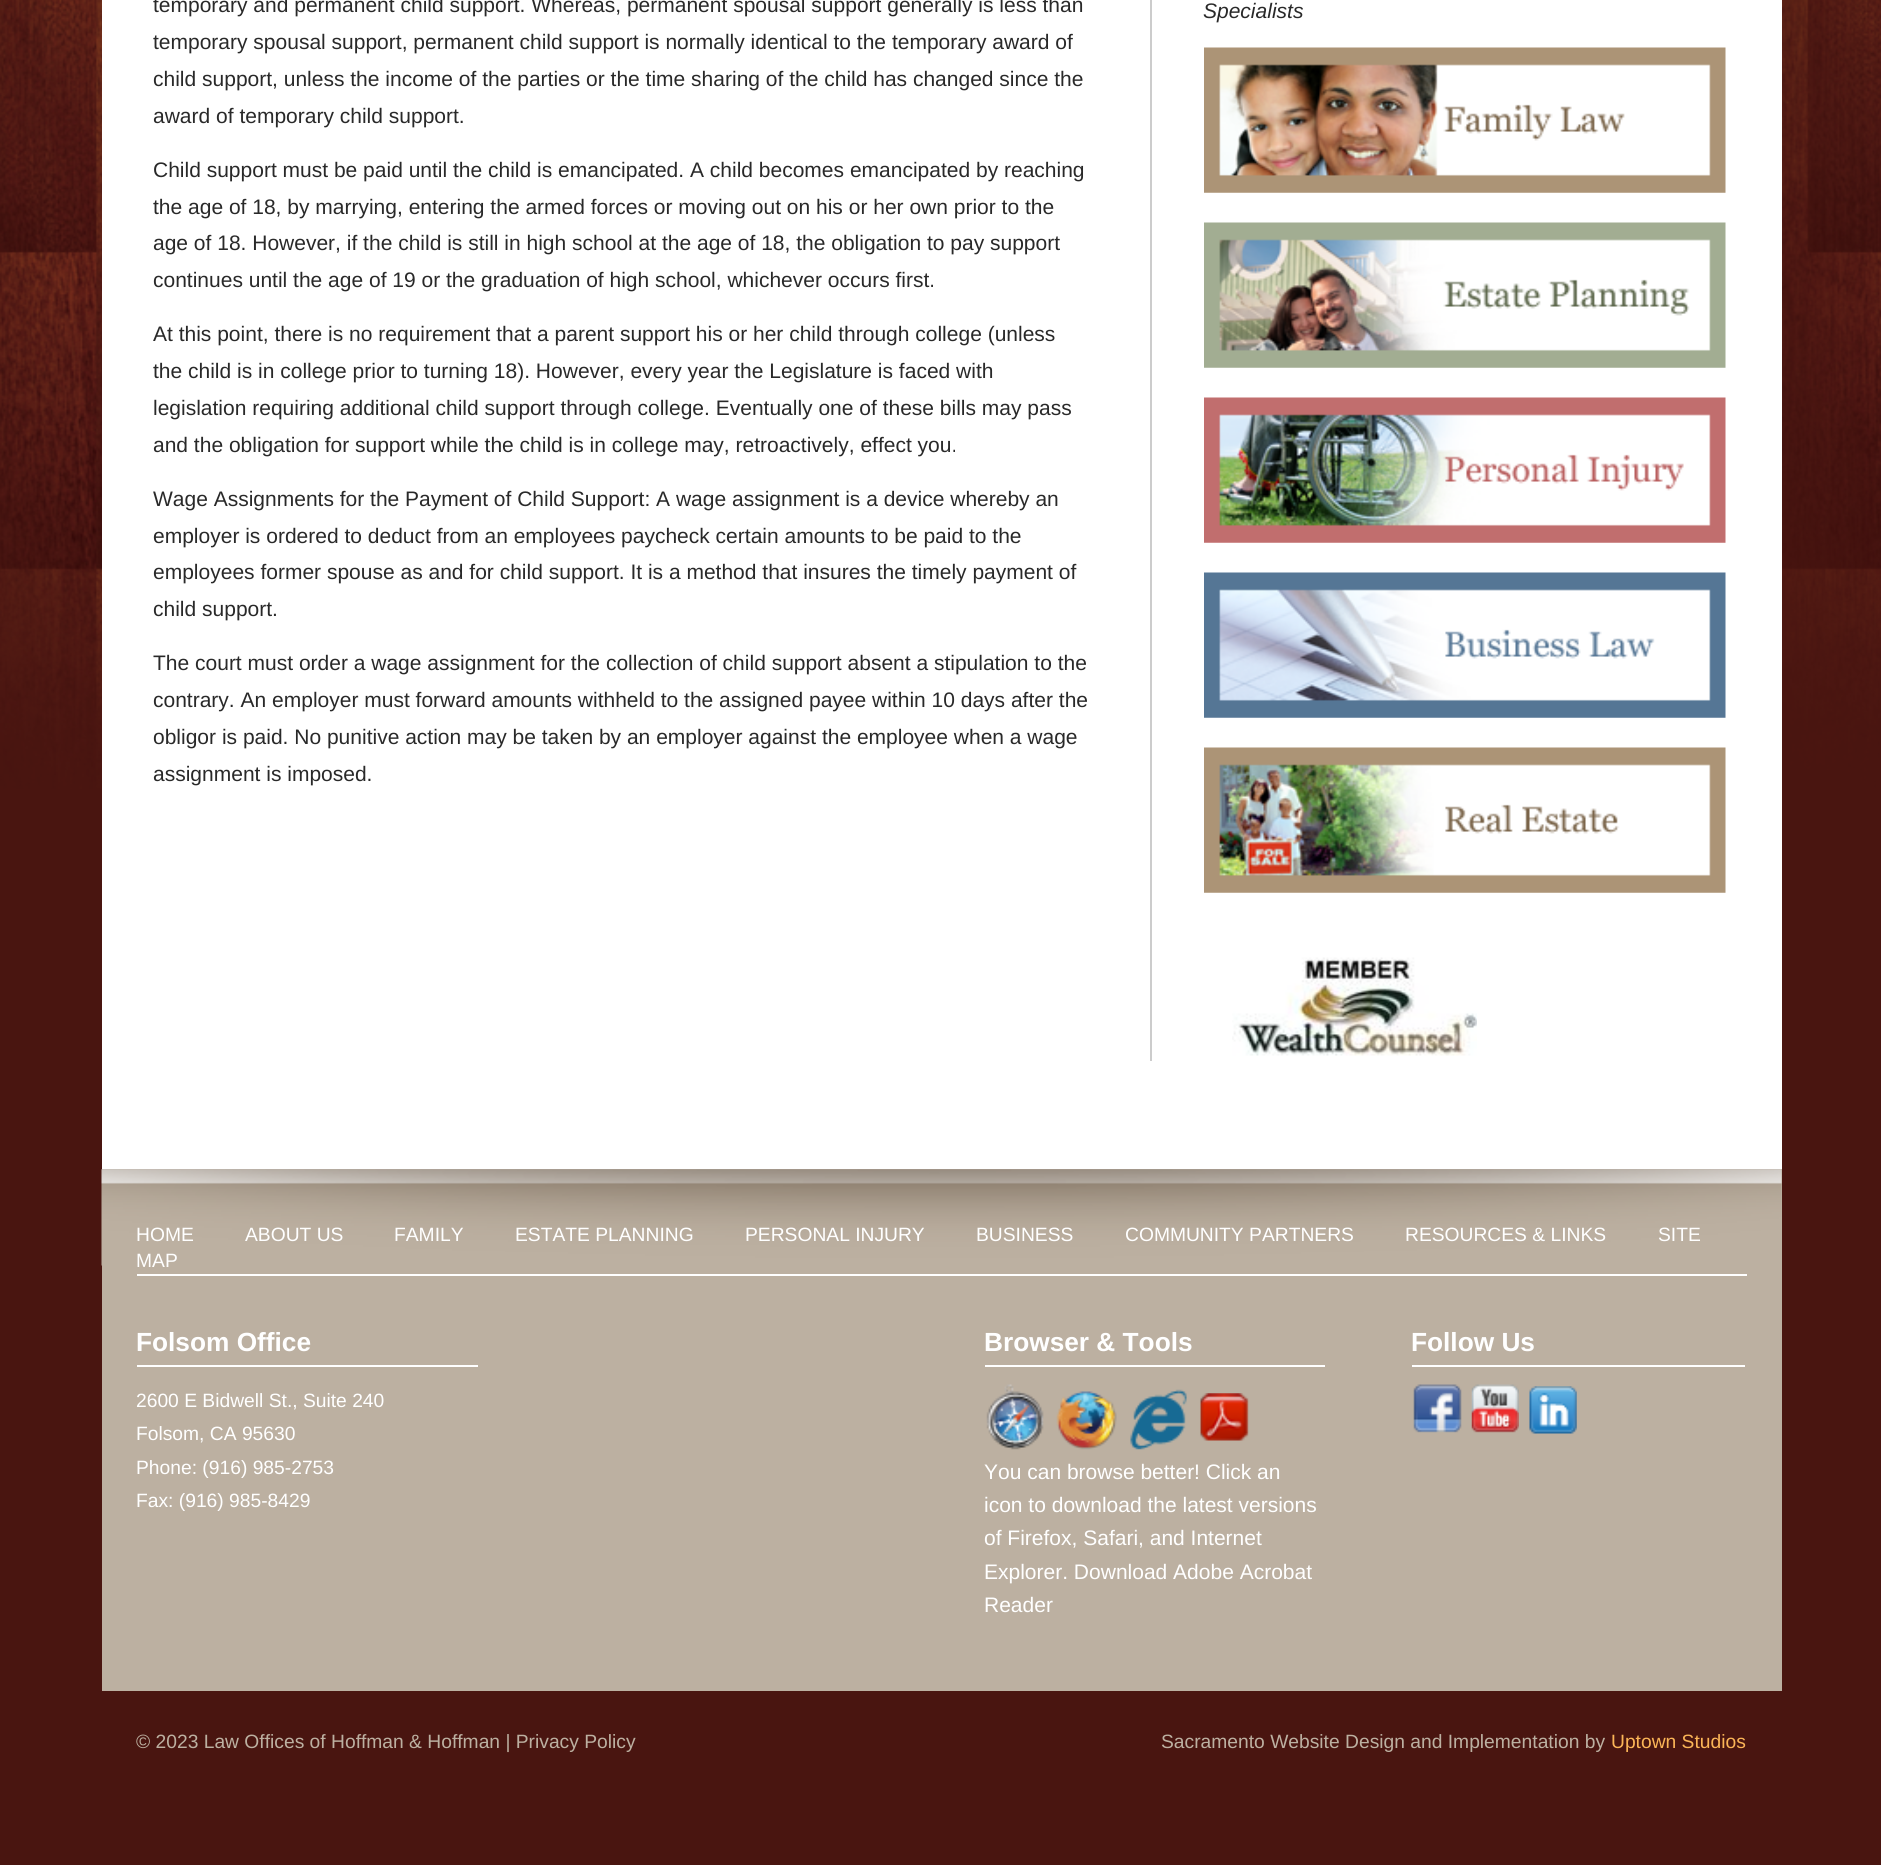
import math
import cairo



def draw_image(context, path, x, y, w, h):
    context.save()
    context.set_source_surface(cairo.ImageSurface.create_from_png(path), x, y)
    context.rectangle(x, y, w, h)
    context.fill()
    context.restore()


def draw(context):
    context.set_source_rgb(73 / 255, 21 / 255, 16 / 255)
    context.paint()
    draw_image(context, "images/1.png", 0, 0, 1881, 789)
    context.set_source_rgb(1, 1, 1)
    context.rectangle(102, 0, 1680, 1169)
    context.fill()
    context.set_source_rgb(204 / 255, 204 / 255, 204 / 255)
    context.rectangle(1150, 0, 2, 1061)
    context.fill()
    draw_image(context, "images/2.png", 1204, 47, 522, 146)
    draw_image(context, "images/3.png", 1204, 222, 522, 146)
    draw_image(context, "images/4.png", 1204, 397, 522, 146)
    draw_image(context, "images/5.png", 1204, 572, 522, 146)
    draw_image(context, "images/6.png", 1204, 747, 522, 146)
    draw_image(context, "images/7.png", 1232, 957, 245, 99)
    context.set_source_rgb(188 / 255, 176 / 255, 161 / 255)
    context.rectangle(102, 1169, 1680, 522)
    context.fill()
    draw_image(context, "images/8.png", 101, 1169, 1681, 97)
    context.set_source_rgb(1, 1, 1)
    context.rectangle(137, 1274, 1610, 2)
    context.fill()
    context.rectangle(137, 1365, 341, 2)
    context.fill()
    context.rectangle(985, 1365, 340, 2)
    context.fill()
    draw_image(context, "images/9.png", 986, 1384, 58, 66)
    draw_image(context, "images/10.png", 1056, 1391, 61, 59)
    draw_image(context, "images/11.png", 1130, 1389, 57, 61)
    draw_image(context, "images/12.png", 1200, 1393, 49, 48)
    context.rectangle(1412, 1365, 333, 2)
    context.fill()
    draw_image(context, "images/13.png", 1413, 1384, 49, 49)
    draw_image(context, "images/14.png", 1471, 1384, 48, 49)
    draw_image(context, "images/15.png", 1529, 1386, 48, 48)
    context.select_font_face("Liberation Sans")
    context.set_font_size(21)
    context.set_source_rgb(41 / 255, 41 / 255, 41 / 255)
    context.move_to(153, 12)
    context.show_text("temporary and permanent child support. Whereas, permanent spousal support generally is less than")
    context.move_to(153, 49)
    context.show_text("temporary spousal support, permanent child support is normally identical to the temporary award of")
    context.move_to(153, 86)
    context.show_text("child support, unless the income of the parties or the time sharing of the child has changed since the")
    context.move_to(153, 123)
    context.show_text("award of temporary child support.")
    context.move_to(153, 177)
    context.show_text("Child support must be paid until the child is emancipated. A child becomes emancipated by reaching")
    context.move_to(153, 214)
    context.show_text("the age of 18, by marrying, entering the armed forces or moving out on his or her own prior to the")
    context.move_to(153, 250)
    context.show_text("age of 18. However, if the child is still in high school at the age of 18, the obligation to pay support")
    context.move_to(153, 287)
    context.show_text("continues until the age of 19 or the graduation of high school, whichever occurs first.")
    context.move_to(153, 341)
    context.show_text("At this point, there is no requirement that a parent support his or her child through college (unless")
    context.move_to(153, 378)
    context.show_text("the child is in college prior to turning 18). However, every year the Legislature is faced with")
    context.move_to(153, 415)
    context.show_text("legislation requiring additional child support through college. Eventually one of these bills may pass")
    context.move_to(153, 452)
    context.show_text("and the obligation for support while the child is in college may, retroactively, effect you.")
    context.move_to(153, 506)
    context.show_text("Wage Assignments for the Payment of Child Support: A wage assignment is a device whereby an")
    context.move_to(153, 543)
    context.show_text("employer is ordered to deduct from an employees paycheck certain amounts to be paid to the")
    context.move_to(153, 579)
    context.show_text("employees former spouse as and for child support. It is a method that insures the timely payment of")
    context.move_to(153, 616)
    context.show_text("child support.")
    context.move_to(153, 670)
    context.show_text("The court must order a wage assignment for the collection of child support absent a stipulation to the")
    context.move_to(153, 707)
    context.show_text("contrary. An employer must forward amounts withheld to the assigned payee within 10 days after the")
    context.move_to(153, 744)
    context.show_text("obligor is paid. No punitive action may be taken by an employer against the employee when a wage")
    context.move_to(153, 781)
    context.show_text("assignment is imposed.")
    context.select_font_face("Liberation Sans", cairo.FontSlant.ITALIC)
    context.move_to(1203, 18)
    context.show_text("Specialists")
    context.select_font_face("Liberation Sans")
    context.set_font_size(19.25)
    context.set_source_rgb(1, 1, 1)
    context.move_to(136, 1241)
    context.show_text("HOME")
    context.move_to(245, 1241)
    context.show_text("ABOUT US")
    context.move_to(394, 1241)
    context.show_text("FAMILY")
    context.move_to(515, 1241)
    context.show_text("ESTATE PLANNING")
    context.move_to(745, 1241)
    context.show_text("PERSONAL INJURY")
    context.move_to(976, 1241)
    context.show_text("BUSINESS")
    context.move_to(1125, 1241)
    context.show_text("COMMUNITY PARTNERS")
    context.move_to(1405, 1241)
    context.show_text("RESOURCES & LINKS")
    context.move_to(1658, 1241)
    context.show_text("SITE")
    context.move_to(136, 1267)
    context.show_text("MAP")
    context.select_font_face("Liberation Sans", cairo.FontSlant.NORMAL, cairo.FontWeight.BOLD)
    context.set_font_size(26.25)
    context.move_to(136, 1351)
    context.show_text("Folsom Office")
    context.select_font_face("Liberation Sans")
    context.set_font_size(19.25)
    context.move_to(136, 1407)
    context.show_text("2600 E Bidwell St., Suite 240")
    context.move_to(136, 1440)
    context.show_text("Folsom, CA 95630")
    context.move_to(136, 1474)
    context.show_text("Phone: (916) 985-2753")
    context.move_to(136, 1507)
    context.show_text("Fax: (916) 985-8429")
    context.select_font_face("Liberation Sans", cairo.FontSlant.NORMAL, cairo.FontWeight.BOLD)
    context.set_font_size(26.25)
    context.move_to(984, 1351)
    context.show_text("Browser & Tools")
    context.select_font_face("Liberation Sans")
    context.set_font_size(21)
    context.move_to(984, 1479)
    context.show_text("You can browse better! Click an")
    context.move_to(984, 1512)
    context.show_text("icon to download the latest versions")
    context.move_to(984, 1545)
    context.show_text("of Firefox, Safari, and Internet")
    context.move_to(984, 1579)
    context.show_text("Explorer. Download Adobe Acrobat")
    context.move_to(984, 1612)
    context.show_text("Reader")
    context.select_font_face("Liberation Sans", cairo.FontSlant.NORMAL, cairo.FontWeight.BOLD)
    context.set_font_size(26.25)
    context.move_to(1411, 1351)
    context.show_text("Follow Us")
    context.select_font_face("Liberation Sans")
    context.set_font_size(19.25)
    context.set_source_rgb(188 / 255, 176 / 255, 161 / 255)
    context.move_to(136, 1748)
    context.show_text("© 2023 Law Offices of Hoffman & Hoffman | Privacy Policy")
    context.move_to(1161, 1748)
    context.show_text("Sacramento Website Design and Implementation by")
    context.set_source_rgb(251 / 255, 181 / 255, 87 / 255)
    context.move_to(1611, 1748)
    context.show_text("Uptown Studios")


surface = cairo.ImageSurface(cairo.Format.RGB24, 1881, 1865)
context = cairo.Context(surface)
options = cairo.FontOptions()
options.set_hint_metrics(cairo.HintMetrics.OFF)
options.set_hint_style(cairo.HintStyle.NONE)
context.set_font_options(options)
context.set_miter_limit(4)
draw(context)
surface.write_to_png("out.png")
